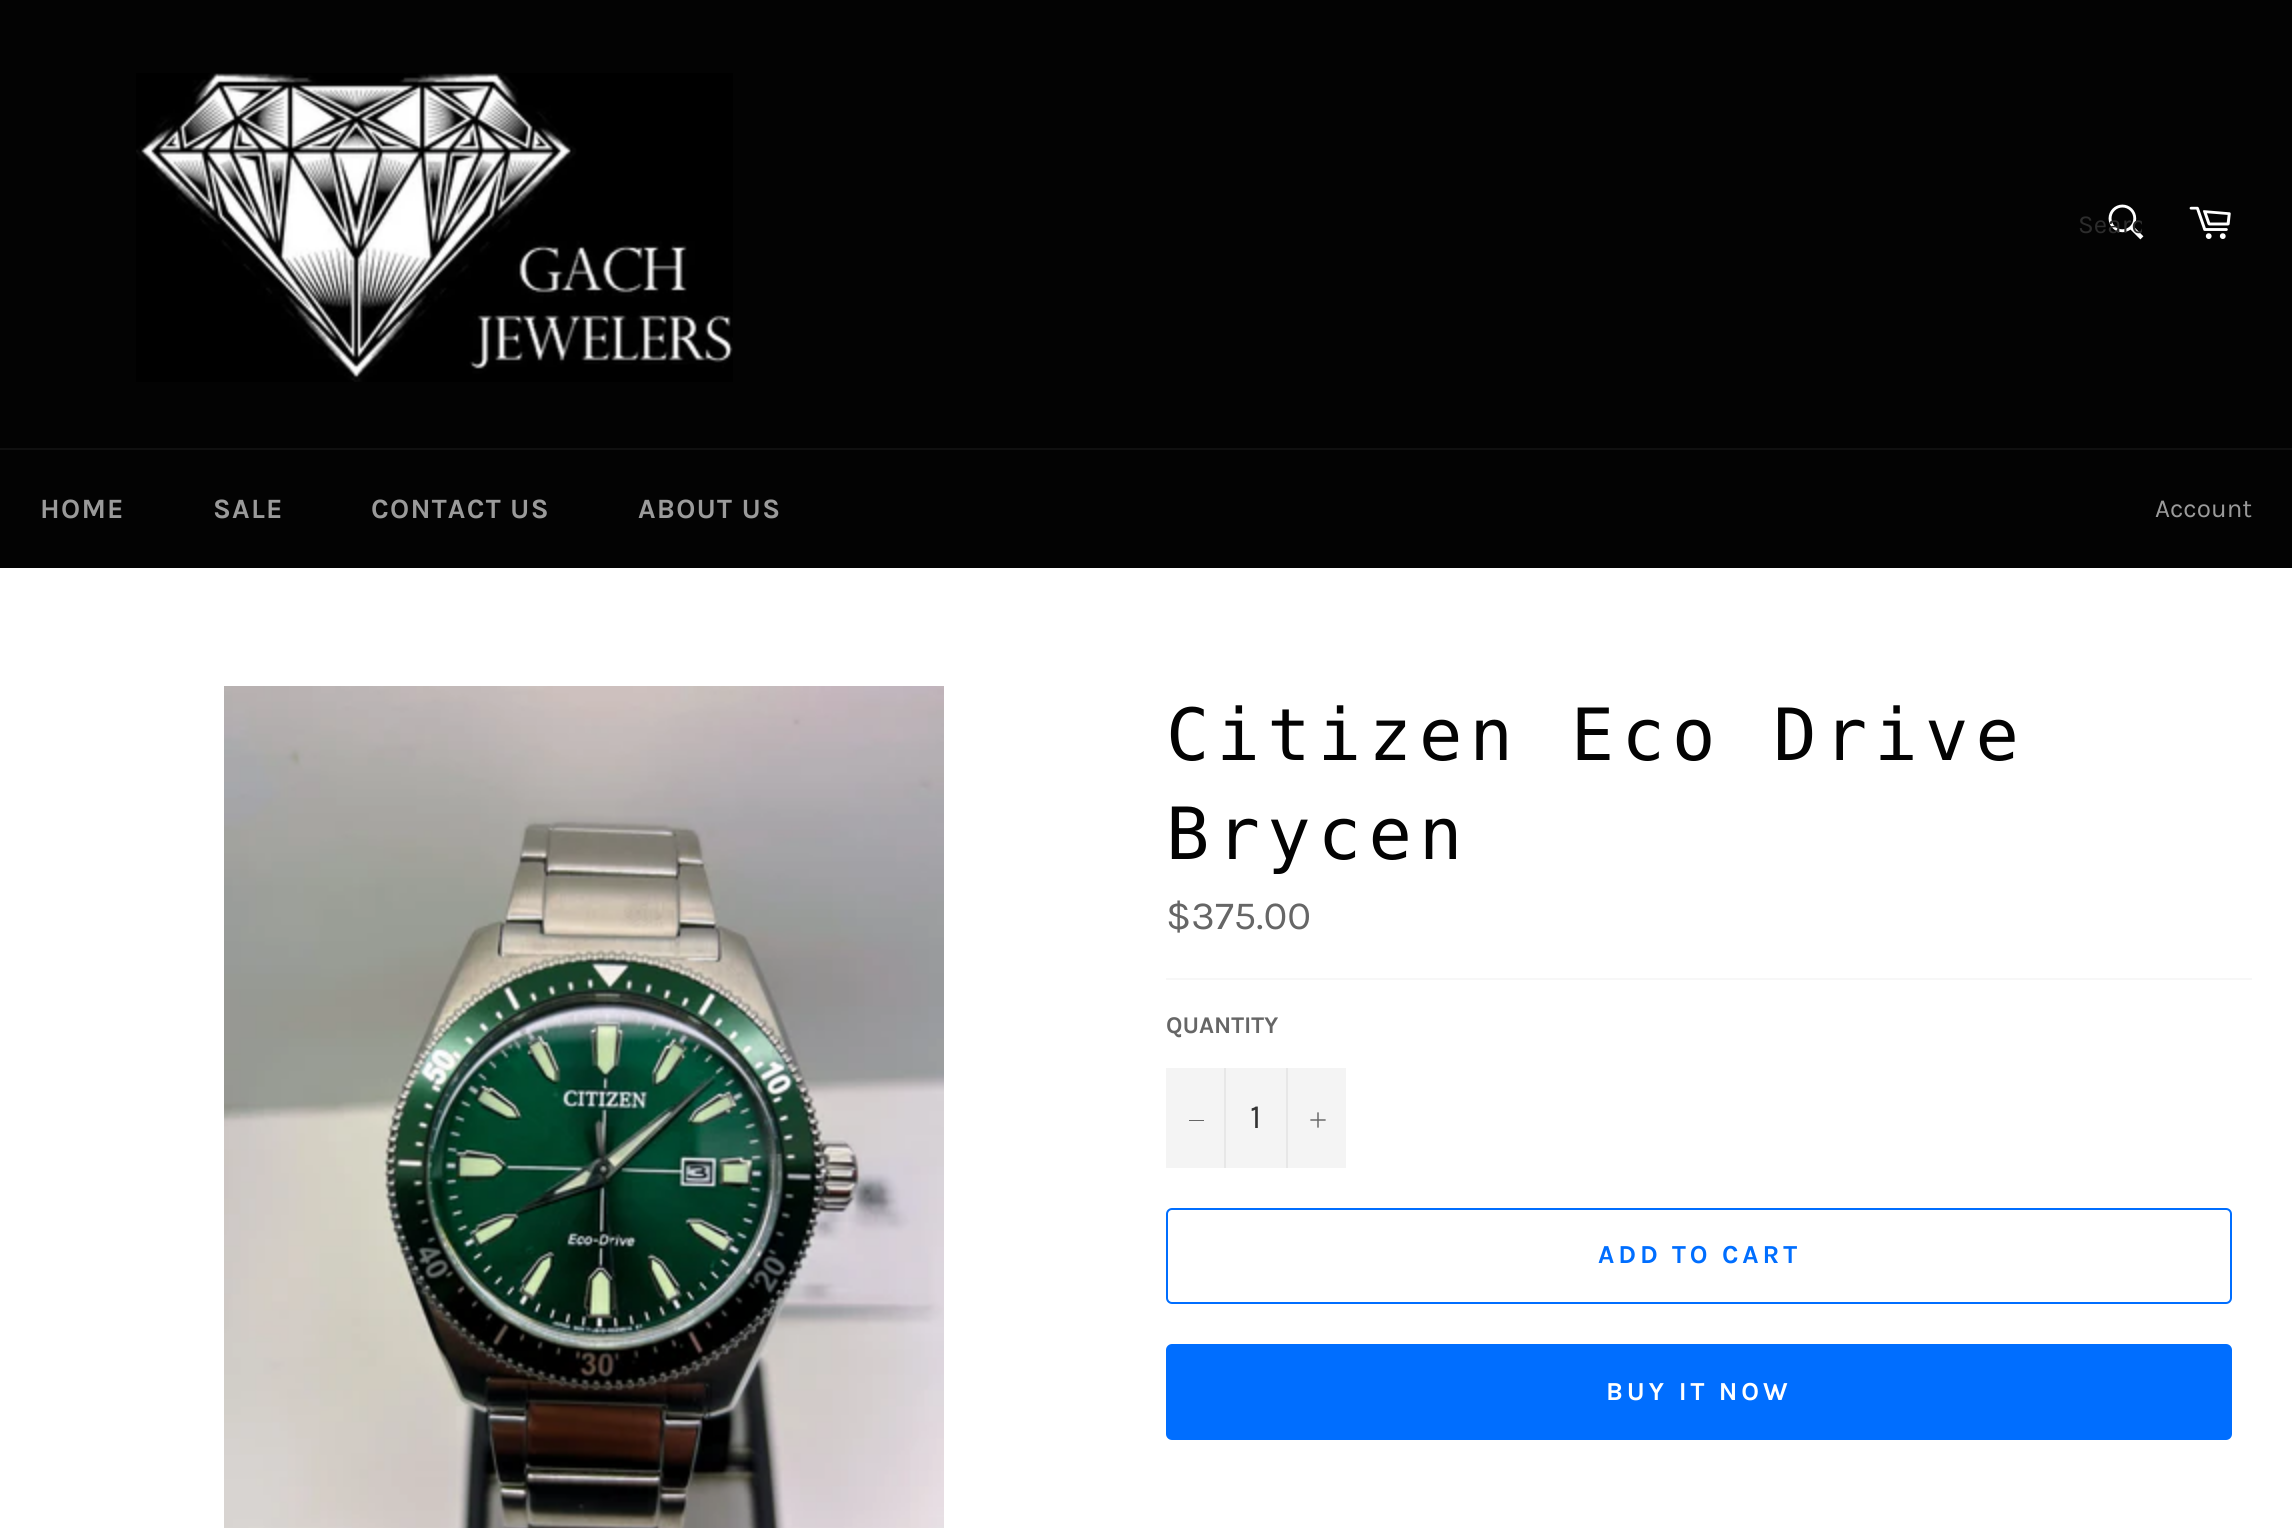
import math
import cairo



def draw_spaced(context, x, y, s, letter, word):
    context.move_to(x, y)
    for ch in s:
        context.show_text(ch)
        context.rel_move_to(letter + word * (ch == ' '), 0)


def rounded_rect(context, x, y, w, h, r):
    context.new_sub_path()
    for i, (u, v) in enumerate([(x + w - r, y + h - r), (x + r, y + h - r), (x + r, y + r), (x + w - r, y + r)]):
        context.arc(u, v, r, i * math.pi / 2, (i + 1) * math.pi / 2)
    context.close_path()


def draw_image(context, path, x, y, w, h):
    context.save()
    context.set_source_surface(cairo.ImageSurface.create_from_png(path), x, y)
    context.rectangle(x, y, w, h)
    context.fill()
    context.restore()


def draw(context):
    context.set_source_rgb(3 / 255, 3 / 255, 3 / 255)
    context.paint()
    draw_image(context, "images/1.png", 136, 73, 597, 309)
    draw_image(context, "images/2.png", 2108, 204, 36, 36)
    draw_image(context, "images/3.png", 2189, 206, 42, 33)
    context.set_source_rgb(16 / 255, 16 / 255, 16 / 255)
    context.rectangle(0, 448, 2292, 2)
    context.fill()
    context.set_source_rgb(1, 1, 1)
    context.rectangle(0, 568, 2292, 960)
    context.fill()
    draw_image(context, "images/4.png", 224, 686, 720, 842)
    context.set_source_rgb(247 / 255, 247 / 255, 247 / 255)
    context.rectangle(1166, 978, 1086, 2)
    context.fill()
    context.set_source_rgb(244 / 255, 244 / 255, 244 / 255)
    context.rectangle(1166, 1068, 180, 100)
    context.fill()
    context.set_source_rgb(231 / 255, 231 / 255, 231 / 255)
    context.rectangle(1224, 1068, 2, 100)
    context.fill()
    context.set_source_rgb(102 / 255, 102 / 255, 102 / 255)
    context.rectangle(1189, 1120, 15, 1)
    context.fill()
    context.set_source_rgb(231 / 255, 231 / 255, 231 / 255)
    context.rectangle(1286, 1068, 2, 100)
    context.fill()
    draw_image(context, "images/5.png", 1310, 1112, 16, 16)
    rounded_rect(context, 1167, 1209, 1064, 94, 5)
    context.set_source_rgb(0, 110 / 255, 1)
    context.stroke()
    rounded_rect(context, 1166, 1344, 1066, 96, 6)
    context.fill()
    context.save()
    context.rectangle(2078, 210, 64, 30)
    context.clip()
    context.select_font_face("Karla")
    context.set_font_size(26)
    context.set_source_rgb(44 / 255, 44 / 255, 44 / 255)
    context.move_to(2078, 233)
    context.show_text("Searc")
    context.restore()
    context.select_font_face("Karla", cairo.FontSlant.NORMAL, cairo.FontWeight.BOLD)
    context.set_font_size(28)
    context.set_source_rgb(154 / 255, 154 / 255, 154 / 255)
    draw_spaced(context, 40, 518, "HOME", 1.25, 0)
    draw_spaced(context, 213, 518, "SALE", 1.25, 0)
    draw_spaced(context, 371, 518, "CONTACT US", 1.25, 0)
    draw_spaced(context, 638, 518, "ABOUT US", 1.25, 0)
    context.select_font_face("Karla")
    context.set_font_size(26)
    context.move_to(2155, 517)
    context.show_text("Account")
    context.select_font_face("DejaVu Sans Mono")
    context.set_font_size(72)
    context.set_source_rgb(3 / 255, 3 / 255, 3 / 255)
    draw_spaced(context, 1166, 760, "Citizen Eco Drive", 7.25, 0)
    draw_spaced(context, 1166, 859, "Brycen", 7.25, 0)
    context.select_font_face("Karla")
    context.set_font_size(40)
    context.set_source_rgb(102 / 255, 102 / 255, 102 / 255)
    context.move_to(1166, 929)
    context.show_text("$375.00")
    context.select_font_face("Karla", cairo.FontSlant.NORMAL, cairo.FontWeight.BOLD)
    context.set_font_size(24)
    context.move_to(1166, 1033)
    context.show_text("QUANTITY")
    context.select_font_face("Karla")
    context.set_font_size(34)
    context.set_source_rgb(51 / 255, 51 / 255, 51 / 255)
    context.move_to(1250, 1128)
    context.show_text("1")
    context.select_font_face("Karla", cairo.FontSlant.NORMAL, cairo.FontWeight.BOLD)
    context.set_font_size(26)
    context.set_source_rgb(0, 110 / 255, 1)
    draw_spaced(context, 1598, 1263, "ADD TO CART", 3.9, 0)
    context.set_source_rgb(1, 1, 1)
    draw_spaced(context, 1606, 1400, "BUY IT NOW", 3.9, 0)


surface = cairo.ImageSurface(cairo.Format.RGB24, 2292, 1528)
context = cairo.Context(surface)
options = cairo.FontOptions()
options.set_hint_metrics(cairo.HintMetrics.OFF)
options.set_hint_style(cairo.HintStyle.NONE)
context.set_font_options(options)
context.set_miter_limit(4)
draw(context)
surface.write_to_png("out.png")
